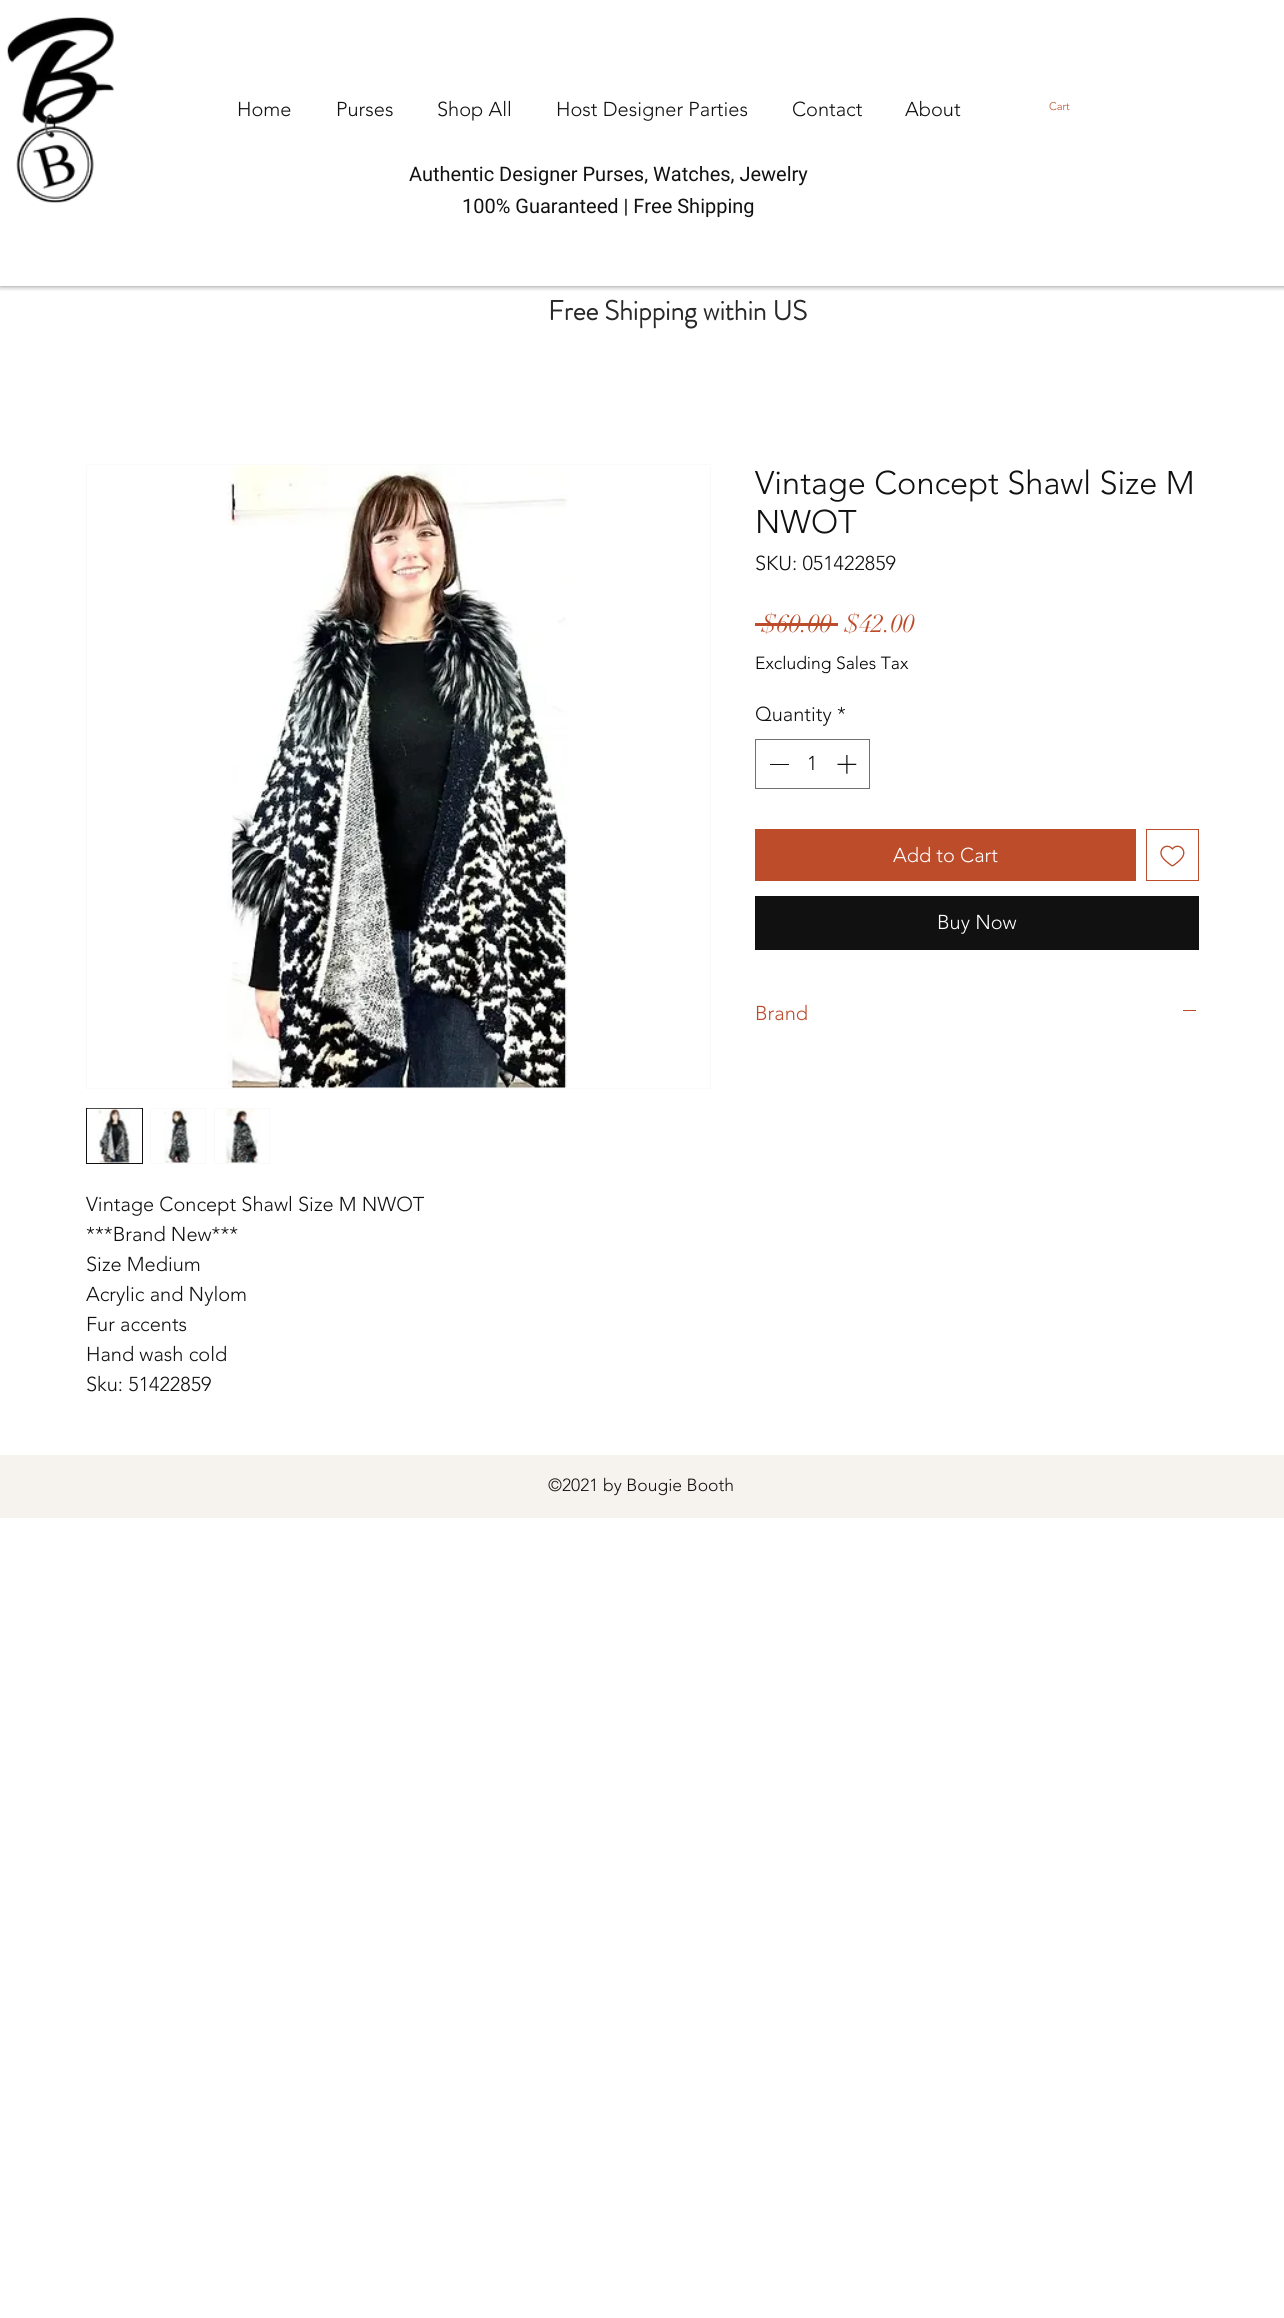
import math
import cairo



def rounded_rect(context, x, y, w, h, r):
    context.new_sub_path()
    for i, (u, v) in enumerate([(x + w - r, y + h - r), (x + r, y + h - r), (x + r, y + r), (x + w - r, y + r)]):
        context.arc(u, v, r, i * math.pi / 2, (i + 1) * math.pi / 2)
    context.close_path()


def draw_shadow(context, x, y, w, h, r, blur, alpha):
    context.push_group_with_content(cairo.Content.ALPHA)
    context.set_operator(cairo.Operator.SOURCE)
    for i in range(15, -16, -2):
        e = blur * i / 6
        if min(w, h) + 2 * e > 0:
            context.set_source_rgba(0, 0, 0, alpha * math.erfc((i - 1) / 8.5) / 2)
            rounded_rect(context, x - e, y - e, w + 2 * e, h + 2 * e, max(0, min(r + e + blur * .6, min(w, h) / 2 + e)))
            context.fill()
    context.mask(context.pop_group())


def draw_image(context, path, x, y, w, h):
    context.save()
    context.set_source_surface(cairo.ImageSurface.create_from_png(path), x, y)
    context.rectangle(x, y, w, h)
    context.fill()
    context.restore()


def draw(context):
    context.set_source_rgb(1, 1, 1)
    context.paint()
    context.save()
    context.rectangle(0, 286, 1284, 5)
    context.clip()
    context.set_source_rgb(0, 0, 0)
    draw_shadow(context, 0, 0, 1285, 286, 0, 3, 0.5)
    context.restore()
    draw_image(context, "images/1.png", 7, 17, 107, 186)
    context.set_source_rgb(188 / 255, 76 / 255, 42 / 255)
    context.rectangle(755, 623, 83, 3)
    context.fill()
    context.rectangle(755.5, 739.5, 114, 49)
    context.set_source_rgb(112 / 255, 112 / 255, 112 / 255)
    context.set_line_width(1)
    context.stroke()
    context.set_source_rgb(17 / 255, 17 / 255, 17 / 255)
    context.rectangle(770, 764, 19, 1)
    context.fill()
    draw_image(context, "images/2.png", 837, 755, 20, 19)
    context.set_source_rgb(188 / 255, 76 / 255, 42 / 255)
    context.rectangle(755, 829, 381, 52)
    context.fill()
    context.rectangle(1146.5, 829.5, 52, 51)
    context.stroke()
    draw_image(context, "images/3.png", 1160, 845, 25, 22)
    context.set_source_rgb(17 / 255, 17 / 255, 17 / 255)
    context.rectangle(755, 896, 444, 54)
    context.fill()
    context.set_source_rgb(188 / 255, 76 / 255, 42 / 255)
    context.rectangle(1183, 1010, 13, 1)
    context.fill()
    context.rectangle(86.5, 464.5, 624, 624)
    context.set_source_rgb(250 / 255, 250 / 255, 250 / 255)
    context.stroke()
    draw_image(context, "images/4.png", 227, 465, 341, 623)
    context.rectangle(86.5, 1108.5, 56, 55)
    context.set_source_rgb(17 / 255, 17 / 255, 17 / 255)
    context.stroke()
    draw_image(context, "images/5.png", 87, 1108, 55, 55)
    context.rectangle(150.5, 1108.5, 55, 55)
    context.set_source_rgb(250 / 255, 250 / 255, 250 / 255)
    context.stroke()
    draw_image(context, "images/6.png", 164, 1109, 28, 54)
    context.rectangle(214.5, 1108.5, 55, 55)
    context.stroke()
    draw_image(context, "images/7.png", 225, 1109, 35, 54)
    context.set_source_rgb(246 / 255, 243 / 255, 239 / 255)
    context.rectangle(0, 1455, 1284, 63)
    context.fill()
    context.select_font_face("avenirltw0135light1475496 Light")
    context.set_font_size(20)
    context.set_source_rgb(17 / 255, 17 / 255, 17 / 255)
    context.move_to(237, 116)
    context.show_text("Home")
    context.move_to(336, 116)
    context.show_text("Purses")
    context.move_to(437, 116)
    context.show_text("Shop All")
    context.move_to(556, 116)
    context.show_text("Host Designer Parties")
    context.move_to(792, 116)
    context.show_text("Contact")
    context.move_to(905, 116)
    context.show_text("About")
    context.set_font_size(11)
    context.set_source_rgb(188 / 255, 76 / 255, 42 / 255)
    context.move_to(1049, 110)
    context.show_text("Cart")
    context.select_font_face("Roboto")
    context.set_font_size(20)
    context.set_source_rgb(17 / 255, 17 / 255, 17 / 255)
    context.move_to(409, 181)
    context.show_text("Authentic Designer Purses, Watches, Jewelry")
    context.move_to(462, 213)
    context.show_text("100% Guaranteed | Free Shipping")
    context.select_font_face("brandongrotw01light", cairo.FontSlant.NORMAL, cairo.FontWeight.BOLD)
    context.set_font_size(27.5)
    context.set_source_rgb(41 / 255, 41 / 255, 41 / 255)
    context.move_to(548, 320)
    context.show_text("Free Shipping within US")
    context.select_font_face("avenirltw0135light1475496 Light")
    context.set_font_size(32.5)
    context.set_source_rgb(17 / 255, 17 / 255, 17 / 255)
    context.move_to(755, 494)
    context.show_text("Vintage Concept Shawl Size M")
    context.move_to(755, 533)
    context.show_text("NWOT")
    context.set_font_size(20)
    context.move_to(755, 570)
    context.show_text("SKU: 051422859")
    context.select_font_face("didot")
    context.set_font_size(25)
    context.set_source_rgb(188 / 255, 76 / 255, 42 / 255)
    context.move_to(761, 632)
    context.show_text("$60.00")
    context.move_to(844, 632)
    context.show_text("$42.00")
    context.select_font_face("avenirltw0135light1475496 Light")
    context.set_font_size(17.5)
    context.set_source_rgb(0, 0, 0)
    context.move_to(755, 669)
    context.show_text("Excluding Sales Tax")
    context.set_font_size(20)
    context.set_source_rgb(17 / 255, 17 / 255, 17 / 255)
    context.move_to(755, 721)
    context.show_text("Quantity *")
    context.move_to(807, 770)
    context.show_text("1")
    context.set_source_rgb(1, 1, 1)
    context.move_to(893, 862)
    context.show_text("Add to Cart")
    context.move_to(937, 929)
    context.show_text("Buy Now")
    context.set_source_rgb(188 / 255, 76 / 255, 42 / 255)
    context.move_to(755, 1020)
    context.show_text("Brand")
    context.set_source_rgb(17 / 255, 17 / 255, 17 / 255)
    context.move_to(86, 1211)
    context.show_text("Vintage Concept Shawl Size M NWOT")
    context.move_to(86, 1241)
    context.show_text("***Brand New***")
    context.move_to(86, 1271)
    context.show_text("Size Medium")
    context.move_to(86, 1301)
    context.show_text("Acrylic and Nylom")
    context.move_to(86, 1331)
    context.show_text("Fur accents")
    context.move_to(86, 1361)
    context.show_text("Hand wash cold")
    context.move_to(86, 1391)
    context.show_text("Sku: 51422859")
    context.set_font_size(17.5)
    context.move_to(548, 1491)
    context.show_text("©2021 by Bougie Booth")


surface = cairo.ImageSurface(cairo.Format.RGB24, 1284, 2318)
context = cairo.Context(surface)
options = cairo.FontOptions()
options.set_hint_metrics(cairo.HintMetrics.OFF)
options.set_hint_style(cairo.HintStyle.NONE)
context.set_font_options(options)
context.set_miter_limit(4)
draw(context)
surface.write_to_png("out.png")
